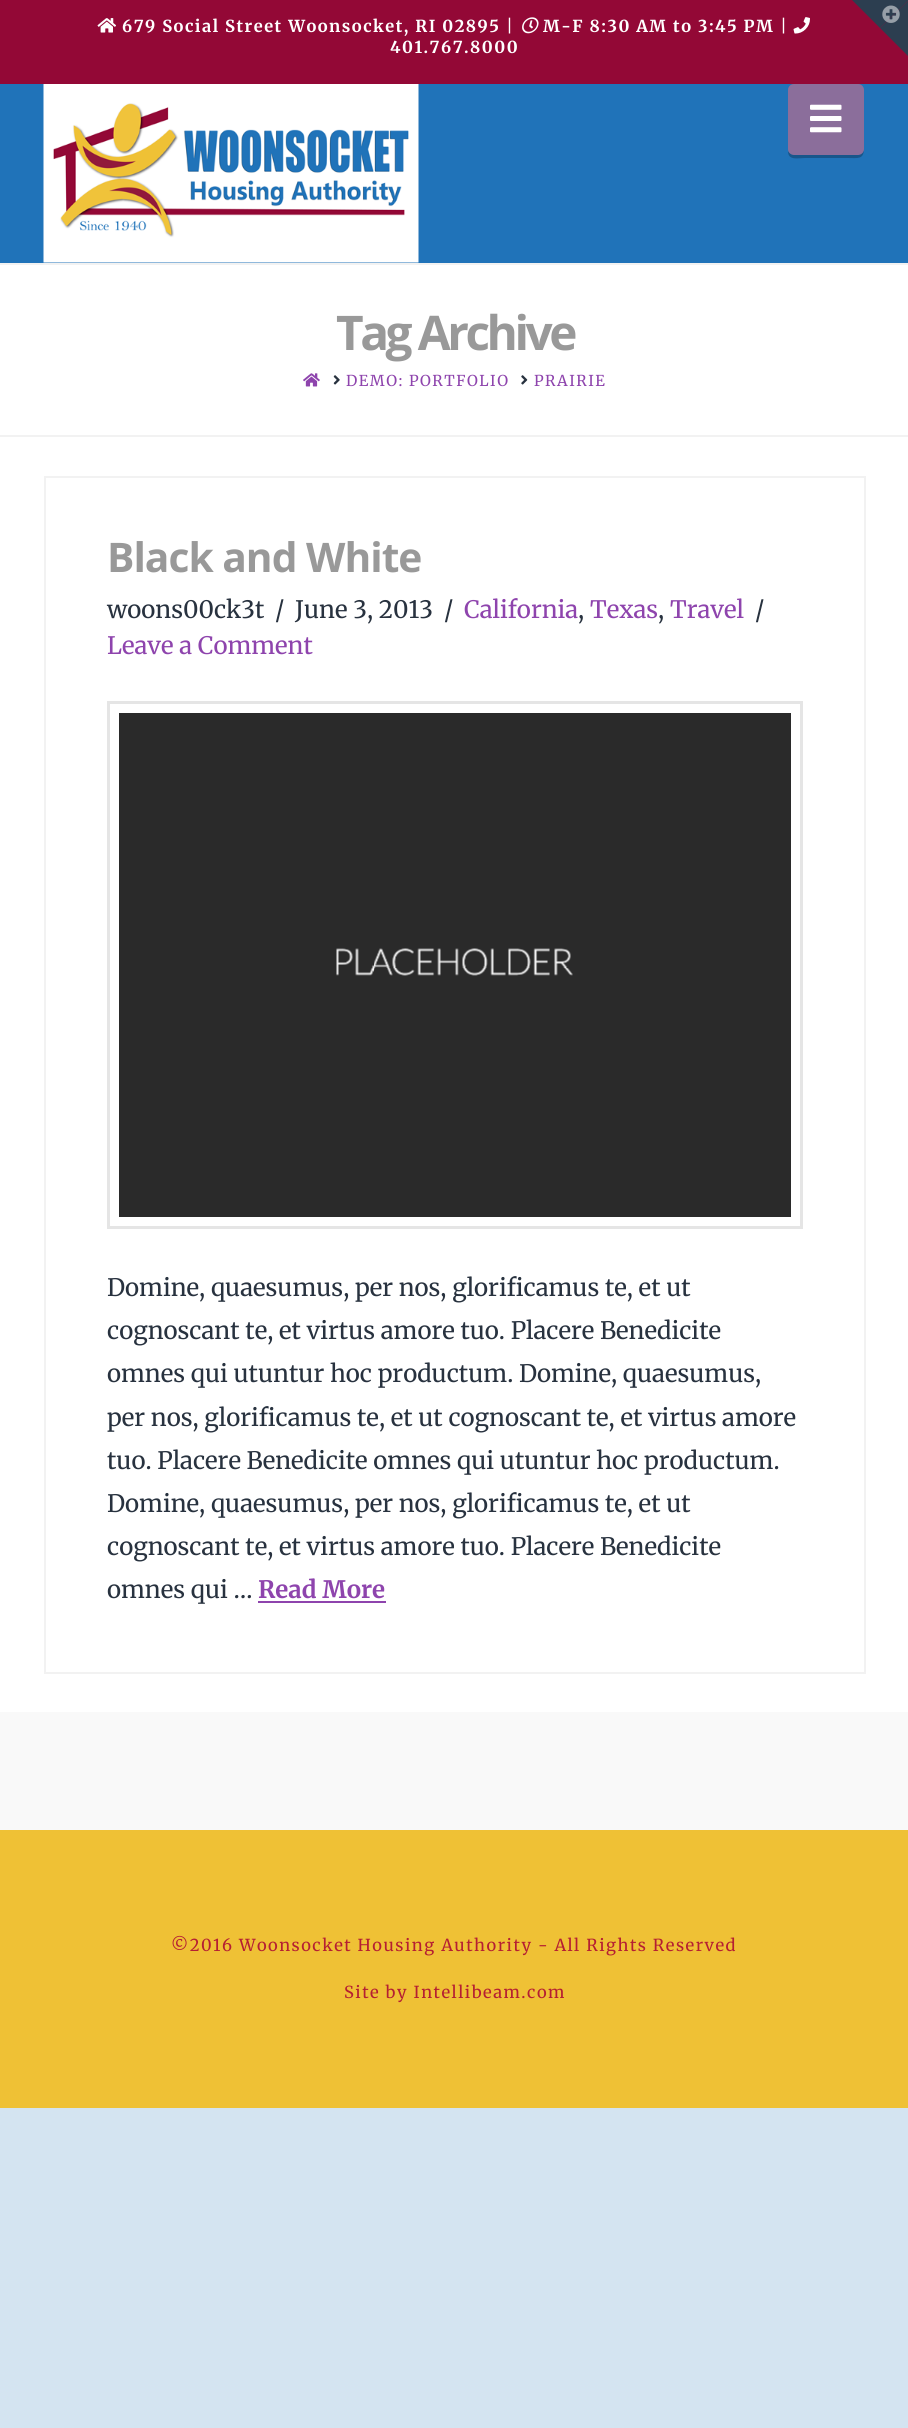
import math
import cairo



def draw_spaced(context, x, y, s, letter, word):
    context.move_to(x, y)
    for ch in s:
        context.show_text(ch)
        context.rel_move_to(letter + word * (ch == ' '), 0)


def rounded_rect(context, x, y, w, h, r):
    context.new_sub_path()
    for i, (u, v) in enumerate([(x + w - r, y + h - r), (x + r, y + h - r), (x + r, y + r), (x + w - r, y + r)]):
        context.arc(u, v, r, i * math.pi / 2, (i + 1) * math.pi / 2)
    context.close_path()


def draw_image(context, path, x, y, w, h):
    context.save()
    context.set_source_surface(cairo.ImageSurface.create_from_png(path), x, y)
    context.rectangle(x, y, w, h)
    context.fill()
    context.restore()


def draw(context):
    context.set_source_rgb(212 / 255, 228 / 255, 241 / 255)
    context.paint()
    context.set_source_rgb(1, 1, 1)
    context.rectangle(0, 265, 908, 1447)
    context.fill()
    context.set_source_rgb(147 / 255, 8 / 255, 54 / 255)
    context.rectangle(0, 0, 908, 84)
    context.fill()
    draw_image(context, "images/1.png", 522, 17, 17, 17)
    draw_image(context, "images/2.png", 793, 17, 17, 17)
    draw_image(context, "images/3.png", 97, 18, 19, 15)
    context.set_source_rgb(32 / 255, 115 / 255, 185 / 255)
    context.rectangle(0, 84, 908, 179)
    context.fill()
    draw_image(context, "images/4.png", 43, 84, 376, 179)
    context.set_source_rgb(24 / 255, 86 / 255, 139 / 255)
    context.new_path()
    context.move_to(788, 151)
    context.curve_to(788, 161, 798, 158, 805, 158)
    context.line_to(847, 158)
    context.curve_to(858, 158, 864, 160, 864, 148)
    context.curve_to(864, 152, 861, 154, 858, 154)
    context.line_to(794, 154)
    context.curve_to(791, 154, 789, 153, 788, 151)
    context.close_path()
    context.fill()
    context.set_source_rgb(139 / 255, 110 / 255, 155 / 255)
    rounded_rect(context, 788, 84, 76, 71, 6)
    context.fill()
    draw_image(context, "images/5.png", 810, 104, 32, 29)
    context.set_source_rgb(242 / 255, 242 / 255, 242 / 255)
    context.rectangle(0, 263, 908, 2)
    context.fill()
    context.rectangle(0, 435, 908, 2)
    context.fill()
    draw_image(context, "images/6.png", 303, 373, 17, 14)
    draw_image(context, "images/7.png", 333, 375, 7, 10)
    draw_image(context, "images/8.png", 521, 375, 7, 10)
    context.rectangle(45, 477, 820, 1196)
    context.stroke()
    context.rectangle(108.5, 702.5, 693, 525)
    context.set_source_rgb(229 / 255, 229 / 255, 229 / 255)
    context.set_line_width(3)
    context.stroke()
    draw_image(context, "images/9.png", 119, 713, 672, 504)
    context.set_source_rgb(142 / 255, 68 / 255, 173 / 255)
    context.rectangle(258, 1601, 128, 2)
    context.fill()
    context.set_source_rgb(249 / 255, 249 / 255, 249 / 255)
    context.rectangle(0, 1712, 908, 118)
    context.fill()
    context.set_source_rgb(239 / 255, 193 / 255, 53 / 255)
    context.rectangle(0, 1830, 908, 278)
    context.fill()
    context.set_source_rgb(44 / 255, 62 / 255, 80 / 255)
    context.new_path()
    context.move_to(852, 0)
    context.line_to(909, 0)
    context.line_to(880, 28)
    context.close_path()
    context.fill()
    context.new_path()
    context.move_to(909, 0)
    context.line_to(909, 57)
    context.line_to(880, 28)
    context.close_path()
    context.fill()
    draw_image(context, "images/10.png", 882, 5, 18, 18)
    context.select_font_face("Merriweather", cairo.FontSlant.NORMAL, cairo.FontWeight.BOLD)
    context.set_font_size(16.5)
    context.set_source_rgb(1, 1, 1)
    draw_spaced(context, 543, 32, "M-F 8:30 AM to 3:45 PM", 1.5, 0)
    context.select_font_face("Merriweather")
    draw_spaced(context, 780, 32, "|", 1.5, 0)
    context.select_font_face("Merriweather", cairo.FontSlant.NORMAL, cairo.FontWeight.BOLD)
    draw_spaced(context, 390, 53, "401.767.8000", 1.5, 0)
    draw_spaced(context, 122, 32, "679 Social Street Woonsocket, RI 02895", 1.5, 0)
    context.select_font_face("Merriweather")
    draw_spaced(context, 506, 32, "|", 1.5, 0)
    context.select_font_face("Open Sans", cairo.FontSlant.NORMAL, cairo.FontWeight.BOLD)
    context.set_font_size(47.75)
    context.set_source_rgb(153 / 255, 153 / 255, 153 / 255)
    draw_spaced(context, 336, 350, "Tag Archive", -3.5, 0)
    context.select_font_face("Merriweather")
    context.set_font_size(15)
    context.set_source_rgb(142 / 255, 68 / 255, 173 / 255)
    draw_spaced(context, 346, 386, "DEMO: PORTFOLIO", 1.5, 0)
    draw_spaced(context, 534, 386, "PRAIRIE", 1.5, 0)
    context.select_font_face("Open Sans", cairo.FontSlant.NORMAL, cairo.FontWeight.BOLD)
    context.set_font_size(40.75)
    context.set_source_rgb(153 / 255, 153 / 255, 153 / 255)
    draw_spaced(context, 107, 572, "Black and White", -1, 0)
    context.select_font_face("Merriweather")
    context.set_font_size(24)
    context.set_source_rgb(40 / 255, 50 / 255, 63 / 255)
    context.move_to(107, 618)
    context.show_text("woons00ck3t")
    context.move_to(275, 618)
    context.show_text("/")
    context.move_to(295, 618)
    context.show_text("June 3, 2013")
    context.move_to(444, 618)
    context.show_text("/")
    context.set_source_rgb(142 / 255, 68 / 255, 173 / 255)
    context.move_to(464, 618)
    context.show_text("California")
    context.set_source_rgb(40 / 255, 50 / 255, 63 / 255)
    context.move_to(578, 618)
    context.show_text(",")
    context.set_source_rgb(142 / 255, 68 / 255, 173 / 255)
    context.move_to(590, 618)
    context.show_text("Texas")
    context.set_source_rgb(40 / 255, 50 / 255, 63 / 255)
    context.move_to(658, 618)
    context.show_text(",")
    context.set_source_rgb(142 / 255, 68 / 255, 173 / 255)
    context.move_to(670, 618)
    context.show_text("Travel")
    context.set_source_rgb(40 / 255, 50 / 255, 63 / 255)
    context.move_to(755, 618)
    context.show_text("/")
    context.set_source_rgb(142 / 255, 68 / 255, 173 / 255)
    context.move_to(107, 654)
    context.show_text("Leave a Comment")
    context.set_source_rgb(40 / 255, 50 / 255, 63 / 255)
    context.move_to(107, 1296)
    context.show_text("Domine, quaesumus, per nos, glorificamus te, et ut")
    context.move_to(107, 1339)
    context.show_text("cognoscant te, et virtus amore tuo. Placere Benedicite")
    context.move_to(107, 1382)
    context.show_text("omnes qui utuntur hoc productum. Domine, quaesumus,")
    context.move_to(107, 1426)
    context.show_text("per nos, glorificamus te, et ut cognoscant te, et virtus amore")
    context.move_to(107, 1469)
    context.show_text("tuo. Placere Benedicite omnes qui utuntur hoc productum.")
    context.move_to(107, 1512)
    context.show_text("Domine, quaesumus, per nos, glorificamus te, et ut")
    context.move_to(107, 1555)
    context.show_text("cognoscant te, et virtus amore tuo. Placere Benedicite")
    context.move_to(107, 1598)
    context.show_text("omnes qui …")
    context.select_font_face("Merriweather", cairo.FontSlant.NORMAL, cairo.FontWeight.BOLD)
    context.set_source_rgb(142 / 255, 68 / 255, 173 / 255)
    context.move_to(258, 1598)
    context.show_text("Read More")
    context.select_font_face("Merriweather")
    context.set_font_size(16.5)
    context.set_source_rgb(181 / 255, 31 / 255, 50 / 255)
    draw_spaced(context, 171, 1951, "©2016 Woonsocket Housing Authority - All Rights Reserved", 1.5, 0)
    draw_spaced(context, 344, 1998, "Site by Intellibeam.com", 1.5, 0)


surface = cairo.ImageSurface(cairo.Format.RGB24, 908, 2428)
context = cairo.Context(surface)
options = cairo.FontOptions()
options.set_hint_metrics(cairo.HintMetrics.OFF)
options.set_hint_style(cairo.HintStyle.NONE)
context.set_font_options(options)
context.set_miter_limit(4)
draw(context)
surface.write_to_png("out.png")
